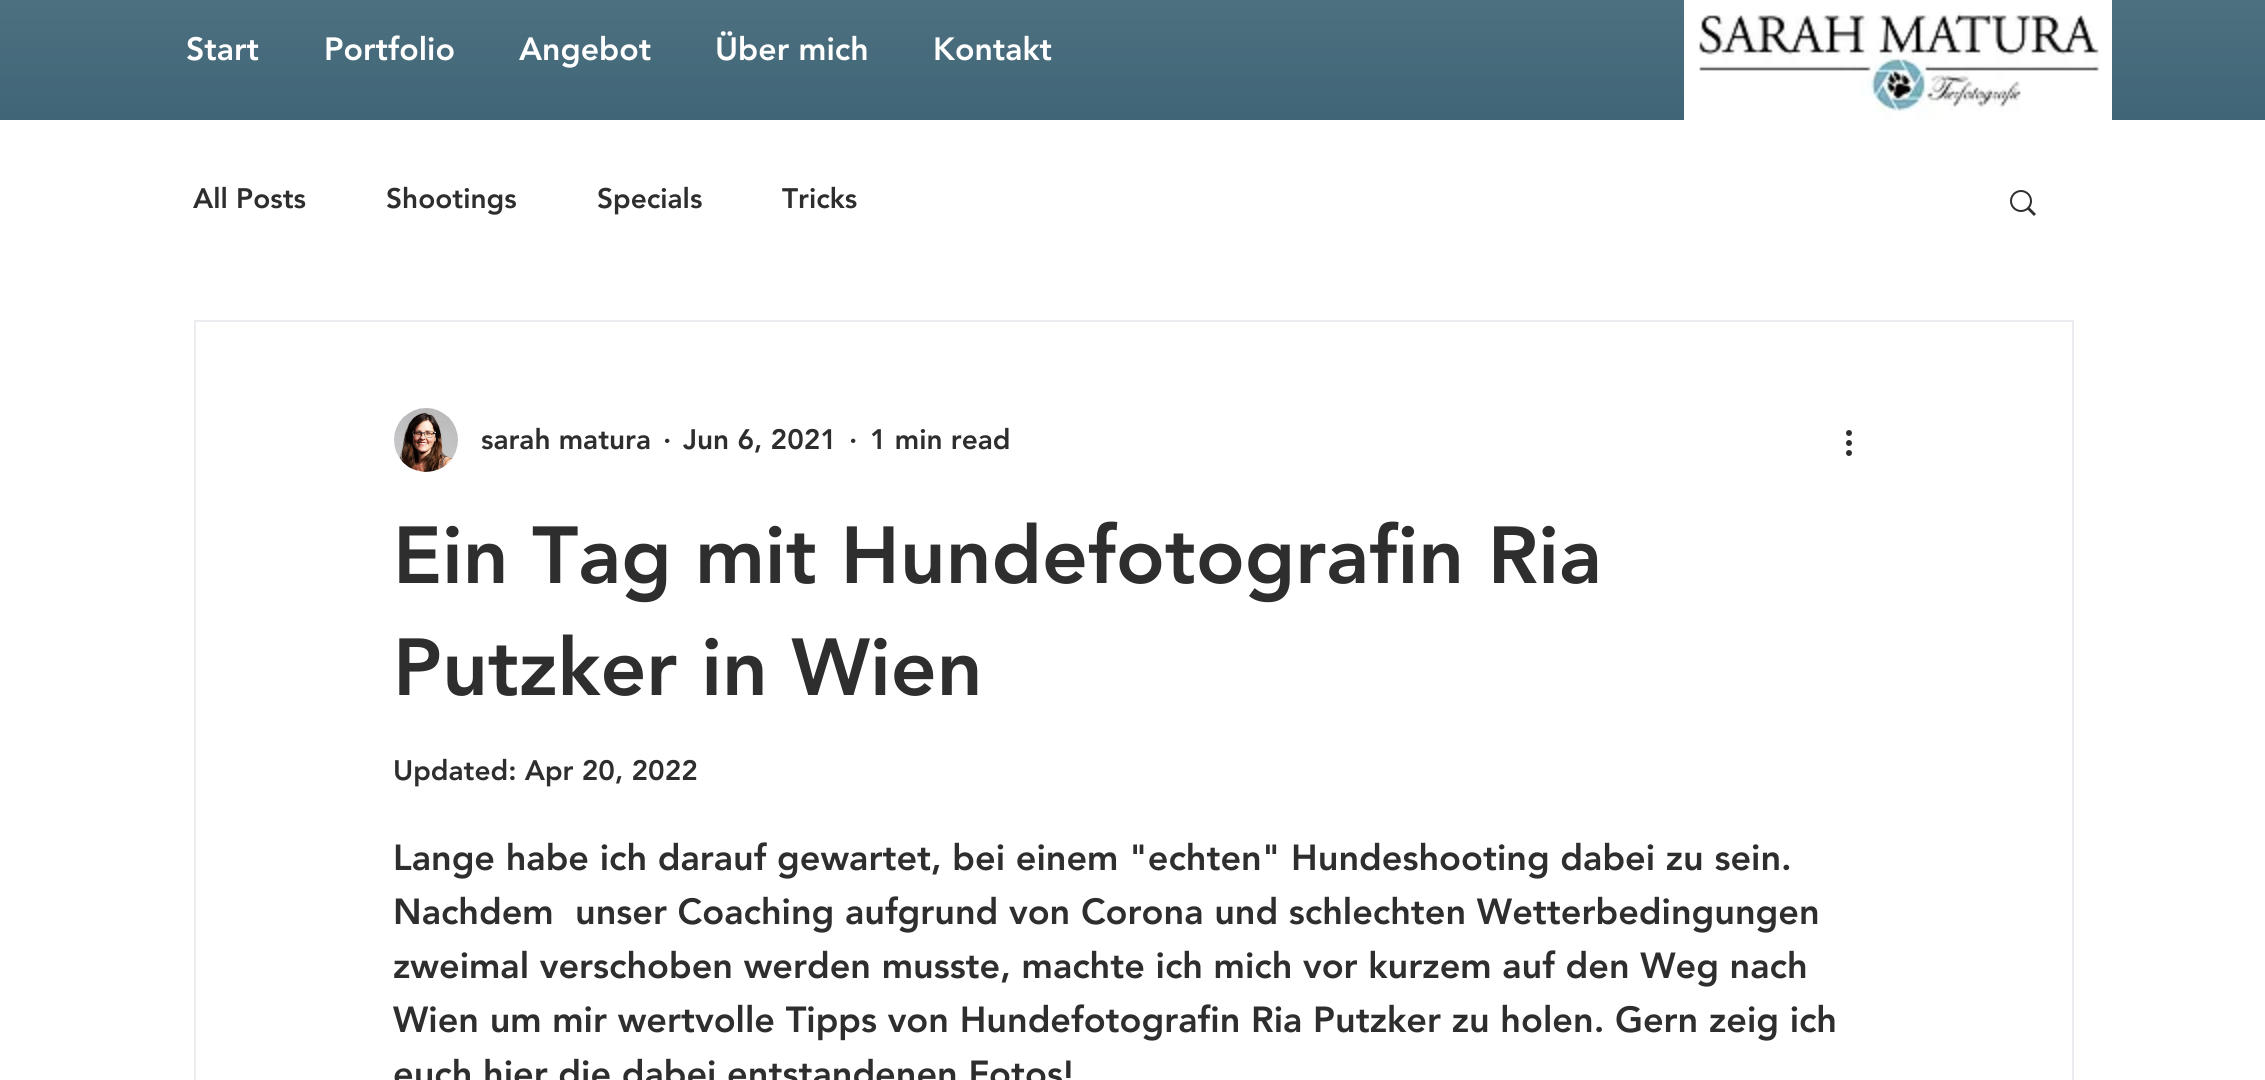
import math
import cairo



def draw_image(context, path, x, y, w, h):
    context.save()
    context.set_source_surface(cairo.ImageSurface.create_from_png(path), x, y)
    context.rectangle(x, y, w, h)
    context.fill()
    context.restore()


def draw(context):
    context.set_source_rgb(1, 1, 1)
    context.paint()
    context.set_source_rgb(16 / 255, 63 / 255, 84 / 255)
    context.rectangle(0, 0, 2265, 120)
    context.fill()
    draw_image(context, "images/1.png", 0, 0, 2265, 120)
    draw_image(context, "images/2.png", 1684, 0, 428, 120)
    draw_image(context, "images/3.png", 2010, 190, 26, 26)
    context.rectangle(195, 321, 1878, 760)
    context.set_source_rgb(235 / 255, 235 / 255, 240 / 255)
    context.stroke()
    draw_image(context, "images/4.png", 394, 408, 64, 64)
    draw_image(context, "images/5.png", 1846, 430, 6, 26)
    context.select_font_face("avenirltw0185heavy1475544 Black")
    context.set_font_size(32)
    context.set_source_rgb(1, 1, 1)
    context.move_to(186, 60)
    context.show_text("Start")
    context.move_to(324, 60)
    context.show_text("Portfolio")
    context.move_to(519, 60)
    context.show_text("Angebot")
    context.move_to(715, 60)
    context.show_text("Über mich")
    context.move_to(933, 60)
    context.show_text("Kontakt")
    context.set_font_size(28)
    context.set_source_rgb(47 / 255, 46 / 255, 46 / 255)
    context.move_to(193, 208)
    context.show_text("All Posts")
    context.move_to(386, 208)
    context.show_text("Shootings")
    context.move_to(597, 208)
    context.show_text("Specials")
    context.move_to(782, 208)
    context.show_text("Tricks")
    context.move_to(481, 449)
    context.show_text("sarah matura")
    context.move_to(663, 449)
    context.show_text("·")
    context.move_to(683, 449)
    context.show_text("Jun 6, 2021")
    context.move_to(849, 449)
    context.show_text("·")
    context.move_to(870, 449)
    context.show_text("1 min read")
    context.set_font_size(80)
    context.move_to(393, 583)
    context.show_text("Ein Tag mit Hundefotografin Ria")
    context.move_to(393, 695)
    context.show_text("Putzker in Wien")
    context.set_font_size(28)
    context.move_to(393, 780)
    context.show_text("Updated: Apr 20, 2022")
    context.set_font_size(36)
    context.move_to(393, 870)
    context.show_text("Lange habe ich darauf gewartet, bei einem \"echten\" Hundeshooting dabei zu sein.")
    context.move_to(393, 924)
    context.show_text("Nachdem  unser Coaching aufgrund von Corona und schlechten Wetterbedingungen")
    context.move_to(393, 978)
    context.show_text("zweimal verschoben werden musste, machte ich mich vor kurzem auf den Weg nach")
    context.move_to(393, 1032)
    context.show_text("Wien um mir wertvolle Tipps von Hundefotografin Ria Putzker zu holen. Gern zeig ich")
    context.move_to(393, 1086)
    context.show_text("euch hier die dabei entstandenen Fotos!")


surface = cairo.ImageSurface(cairo.Format.RGB24, 2265, 1080)
context = cairo.Context(surface)
options = cairo.FontOptions()
options.set_hint_metrics(cairo.HintMetrics.OFF)
options.set_hint_style(cairo.HintStyle.NONE)
context.set_font_options(options)
context.set_miter_limit(4)
draw(context)
surface.write_to_png("out.png")
